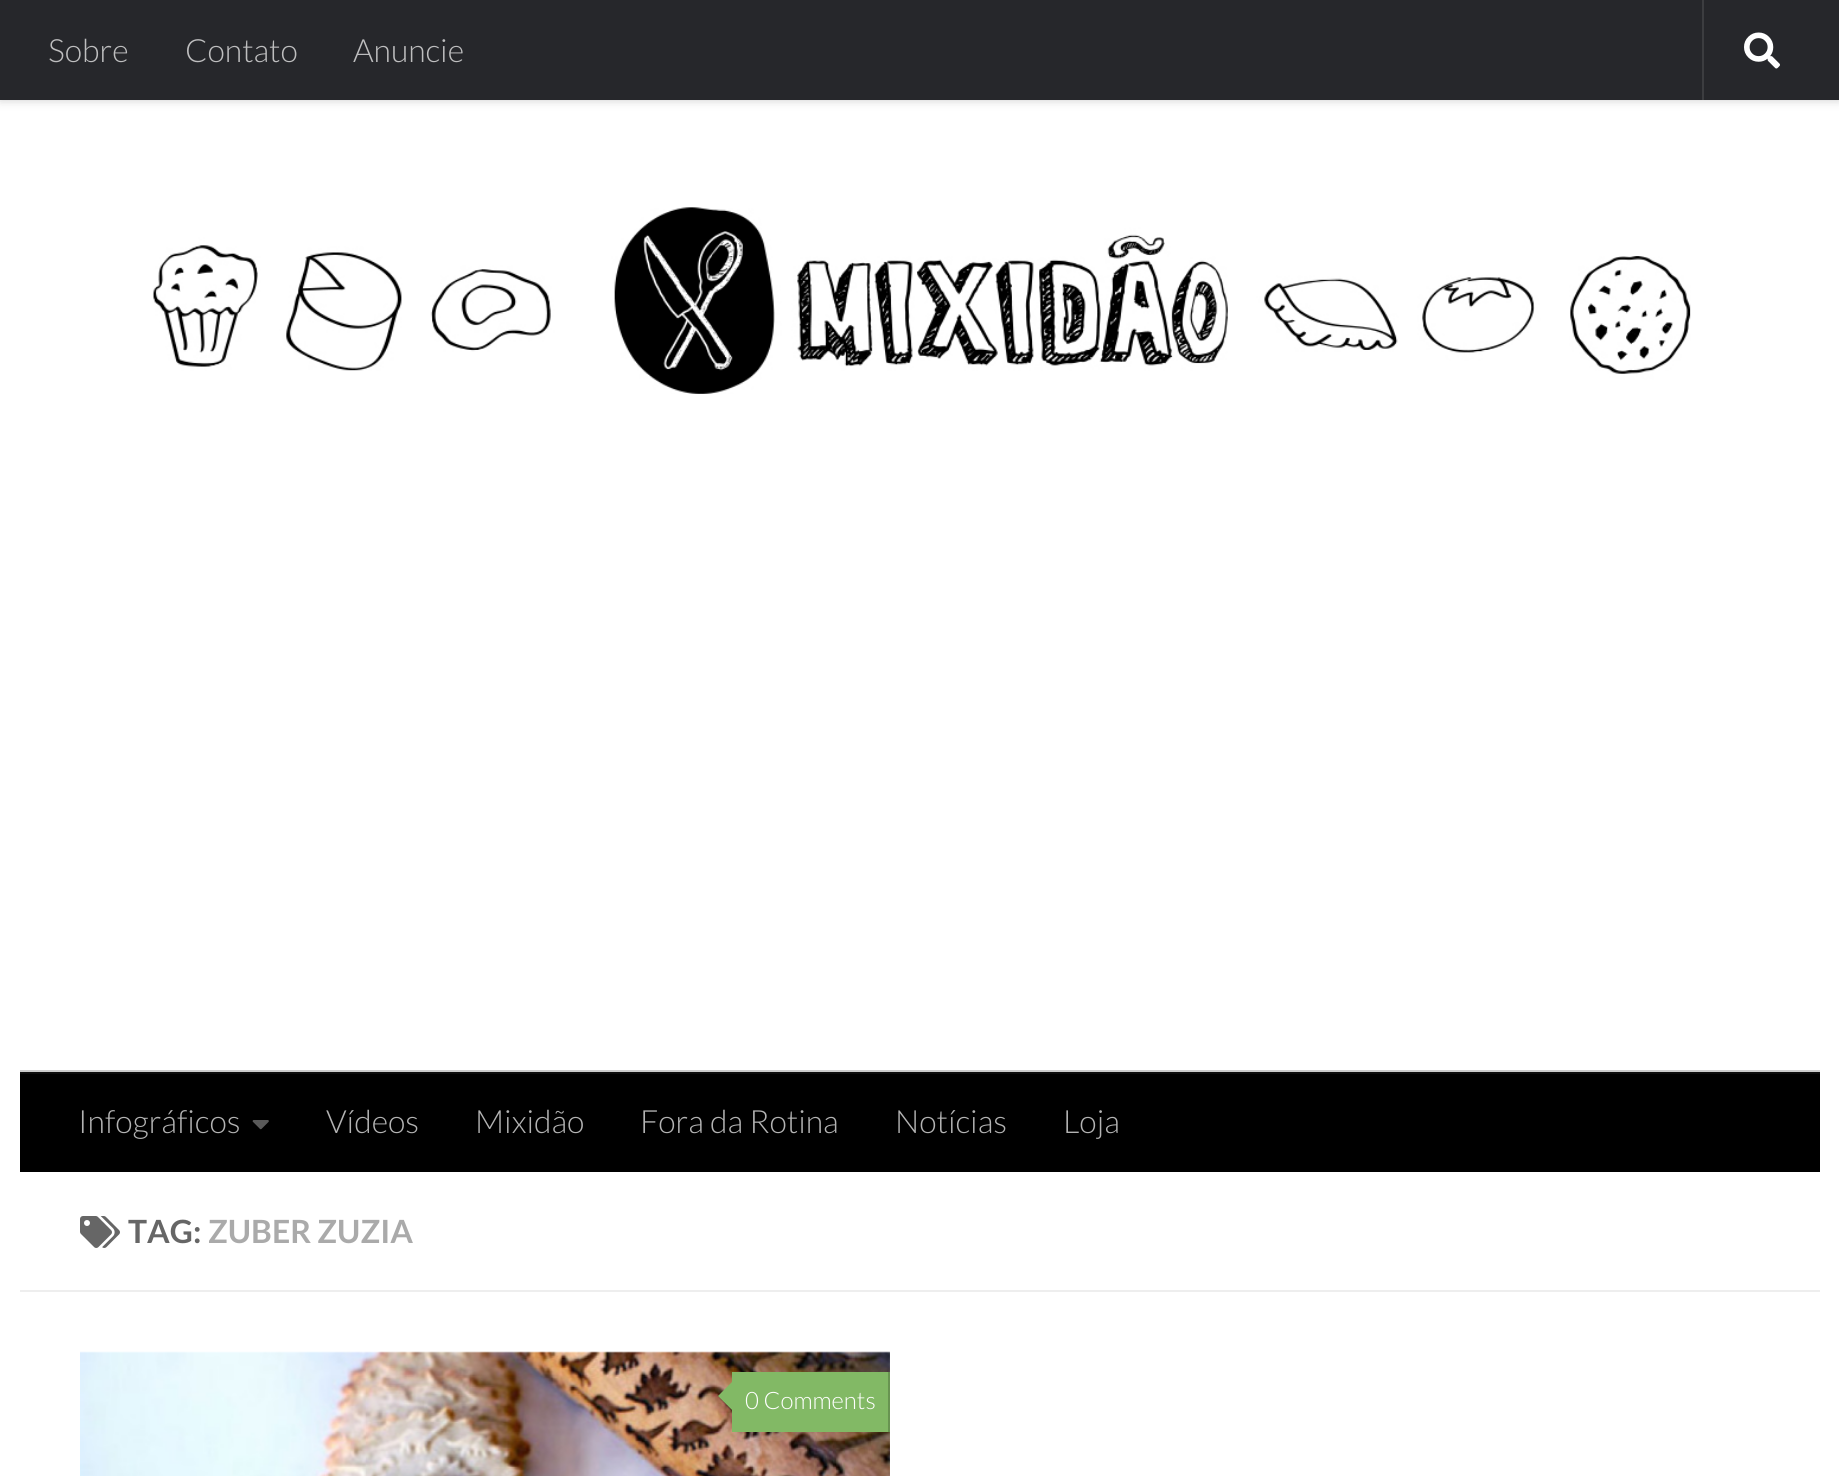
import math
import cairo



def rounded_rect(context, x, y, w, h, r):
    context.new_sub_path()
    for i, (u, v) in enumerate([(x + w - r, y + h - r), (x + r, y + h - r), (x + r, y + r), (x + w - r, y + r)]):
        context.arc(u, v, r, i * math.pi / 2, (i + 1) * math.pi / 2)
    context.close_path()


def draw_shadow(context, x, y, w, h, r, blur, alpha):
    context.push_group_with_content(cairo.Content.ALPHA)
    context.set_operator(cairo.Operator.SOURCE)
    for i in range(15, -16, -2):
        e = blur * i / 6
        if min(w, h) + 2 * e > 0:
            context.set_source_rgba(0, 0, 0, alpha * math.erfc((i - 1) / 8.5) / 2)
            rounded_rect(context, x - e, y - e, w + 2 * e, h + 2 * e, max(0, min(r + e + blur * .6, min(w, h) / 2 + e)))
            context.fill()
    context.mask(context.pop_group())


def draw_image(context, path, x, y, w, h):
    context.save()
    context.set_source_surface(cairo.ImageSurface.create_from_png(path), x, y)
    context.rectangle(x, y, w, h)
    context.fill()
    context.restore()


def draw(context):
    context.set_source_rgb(1, 1, 1)
    context.paint()
    context.set_source_rgb(0, 0, 0)
    draw_shadow(context, 0, 0, 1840, 100, 0, 5, 0.2)
    context.set_source_rgb(38 / 255, 39 / 255, 43 / 255)
    context.rectangle(0, 0, 1839, 100)
    context.fill()
    context.set_source_rgb(60 / 255, 61 / 255, 64 / 255)
    context.rectangle(1702, 0, 2, 100)
    context.fill()
    draw_image(context, "images/1.png", 1744, 32, 36, 37)
    draw_image(context, "images/2.png", 152, 207, 1539, 187)
    context.set_source_rgb(204 / 255, 204 / 255, 204 / 255)
    context.rectangle(20, 1070, 1800, 2)
    context.fill()
    context.set_source_rgb(0, 0, 0)
    context.rectangle(20, 1074, 1800, 98)
    context.fill()
    context.set_source_rgb(13 / 255, 13 / 255, 13 / 255)
    context.rectangle(20, 1072, 1800, 2)
    context.fill()
    draw_image(context, "images/3.png", 252, 1120, 17, 10)
    context.set_source_rgb(238 / 255, 238 / 255, 238 / 255)
    context.rectangle(20, 1290, 1800, 2)
    context.fill()
    draw_image(context, "images/4.png", 80, 1216, 40, 32)
    draw_image(context, "images/5.png", 80, 1351, 810, 125)
    context.set_source_rgb(130 / 255, 185 / 255, 101 / 255)
    context.rectangle(732, 1372, 156, 60)
    context.fill()
    context.set_source_rgb(104 / 255, 148 / 255, 81 / 255)
    context.rectangle(888, 1372, 2, 60)
    context.fill()
    context.set_source_rgb(130 / 255, 185 / 255, 101 / 255)
    context.new_path()
    context.move_to(736, 1378)
    context.line_to(736, 1414)
    context.line_to(718, 1396)
    context.close_path()
    context.fill()
    context.select_font_face("Lato Light")
    context.set_font_size(32)
    context.set_source_rgb(190 / 255, 190 / 255, 191 / 255)
    context.move_to(48, 62)
    context.show_text("Sobre")
    context.move_to(185, 62)
    context.show_text("Contato")
    context.move_to(353, 62)
    context.show_text("Anuncie")
    context.set_source_rgb(179 / 255, 179 / 255, 179 / 255)
    context.move_to(78, 1133)
    context.show_text("Infográficos")
    context.move_to(326, 1133)
    context.show_text("Vídeos")
    context.move_to(475, 1133)
    context.show_text("Mixidão")
    context.move_to(640, 1133)
    context.show_text("Fora da Rotina")
    context.move_to(895, 1133)
    context.show_text("Notícias")
    context.move_to(1063, 1133)
    context.show_text("Loja")
    context.select_font_face("Lato", cairo.FontSlant.NORMAL, cairo.FontWeight.BOLD)
    context.set_source_rgb(102 / 255, 102 / 255, 102 / 255)
    context.move_to(128, 1243)
    context.show_text("TAG:")
    context.set_source_rgb(170 / 255, 170 / 255, 170 / 255)
    context.move_to(208, 1243)
    context.show_text("ZUBER ZUZIA")
    context.select_font_face("Lato Light")
    context.set_font_size(24)
    context.set_source_rgb(1, 1, 1)
    context.move_to(745, 1409)
    context.show_text("0 Comments")


surface = cairo.ImageSurface(cairo.Format.RGB24, 1839, 1476)
context = cairo.Context(surface)
options = cairo.FontOptions()
options.set_hint_metrics(cairo.HintMetrics.OFF)
options.set_hint_style(cairo.HintStyle.NONE)
context.set_font_options(options)
context.set_miter_limit(4)
draw(context)
surface.write_to_png("out.png")
